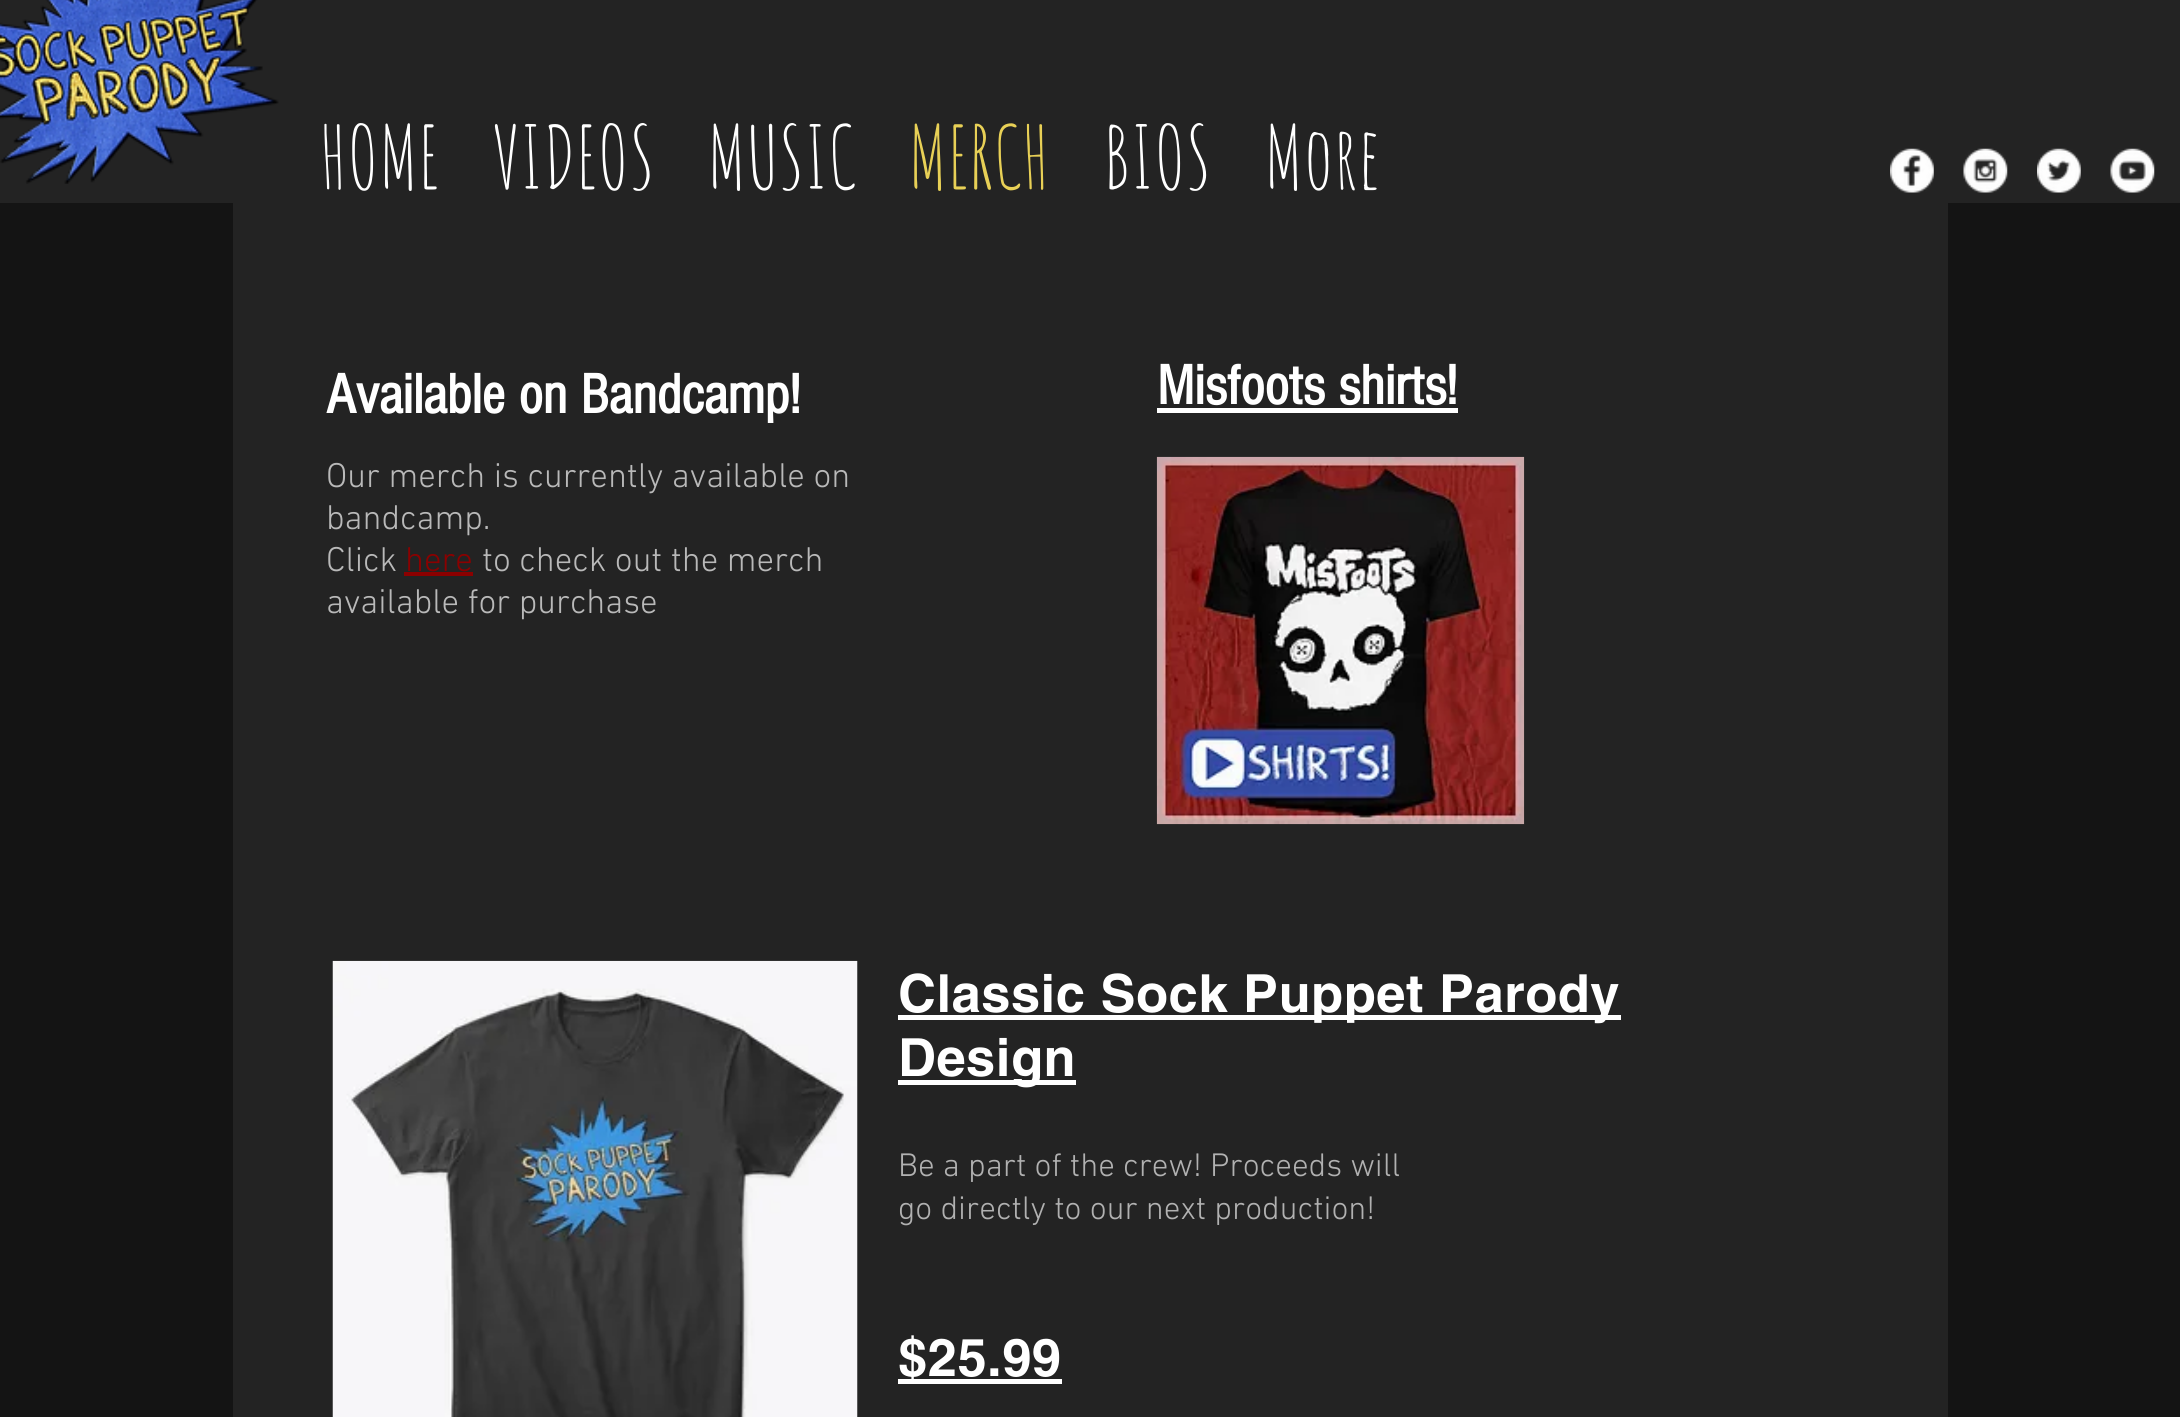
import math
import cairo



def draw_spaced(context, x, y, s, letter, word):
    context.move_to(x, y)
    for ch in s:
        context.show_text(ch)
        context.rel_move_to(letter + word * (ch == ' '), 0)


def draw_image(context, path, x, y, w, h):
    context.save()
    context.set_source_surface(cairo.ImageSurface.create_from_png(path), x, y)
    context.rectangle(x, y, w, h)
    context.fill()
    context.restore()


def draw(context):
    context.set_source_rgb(20 / 255, 20 / 255, 20 / 255)
    context.paint()
    context.set_source_rgb(35 / 255, 35 / 255, 35 / 255)
    context.rectangle(0, 0, 2180, 203)
    context.fill()
    draw_image(context, "images/1.png", 0, 0, 279, 184)
    draw_image(context, "images/2.png", 1890, 148, 44, 45)
    draw_image(context, "images/3.png", 1963, 148, 45, 45)
    draw_image(context, "images/4.png", 2037, 148, 44, 45)
    draw_image(context, "images/5.png", 2110, 148, 45, 45)
    context.rectangle(233, 203, 1715, 1214)
    context.fill()
    context.set_source_rgb(1, 1, 1)
    context.rectangle(1157, 408, 301, 5)
    context.fill()
    context.set_source_rgb(139 / 255, 0, 0)
    context.rectangle(404, 572, 69, 4)
    context.fill()
    draw_image(context, "images/6.png", 1156, 456, 369, 369)
    draw_image(context, "images/7.png", 332, 960, 526, 457)
    context.set_source_rgb(1, 1, 1)
    context.rectangle(898, 1015, 723, 5)
    context.fill()
    context.rectangle(898, 1080, 178, 5)
    context.fill()
    context.rectangle(898, 1379, 164, 5)
    context.fill()
    context.select_font_face("Amatic SC")
    context.set_font_size(86)
    context.move_to(319, 189)
    context.show_text("HOME")
    context.move_to(492, 189)
    context.show_text("VIDEOS")
    context.move_to(707, 189)
    context.show_text("MUSIC")
    context.set_source_rgb(232 / 255, 208 / 255, 86 / 255)
    context.move_to(908, 189)
    context.show_text("MERCH")
    context.set_source_rgb(1, 1, 1)
    context.move_to(1103, 189)
    context.show_text("BIOS")
    context.move_to(1264, 189)
    context.show_text("More")
    context.select_font_face("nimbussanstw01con", cairo.FontSlant.NORMAL, cairo.FontWeight.BOLD)
    context.set_font_size(57.75)
    context.move_to(326, 413)
    context.show_text("Available on Bandcamp!")
    context.move_to(1157, 404)
    context.show_text("Misfoots shirts!")
    context.select_font_face("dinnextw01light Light")
    context.set_font_size(35)
    context.set_source_rgb(185 / 255, 185 / 255, 185 / 255)
    context.move_to(326, 487)
    context.show_text("Our merch is currently available on")
    context.move_to(326, 529)
    context.show_text("bandcamp.")
    context.move_to(326, 571)
    context.show_text("Click")
    context.set_source_rgb(139 / 255, 0, 0)
    context.move_to(405, 571)
    context.show_text("here")
    context.set_source_rgb(185 / 255, 185 / 255, 185 / 255)
    context.move_to(482, 571)
    context.show_text("to check out the merch")
    context.move_to(326, 613)
    context.show_text("available for purchase")
    context.select_font_face("helvetica", cairo.FontSlant.NORMAL, cairo.FontWeight.BOLD)
    context.set_font_size(52.5)
    context.set_source_rgb(1, 1, 1)
    draw_spaced(context, 898, 1012, "Classic Sock Puppet Parody", 0.5, 0)
    draw_spaced(context, 898, 1076, "Design", 0.5, 0)
    context.select_font_face("dinnextw01light Light")
    context.set_font_size(33.25)
    context.set_source_rgb(177 / 255, 177 / 255, 177 / 255)
    context.move_to(898, 1176)
    context.show_text("Be a part of the crew! Proceeds will")
    context.move_to(898, 1219)
    context.show_text("go directly to our next production!")
    context.select_font_face("helvetica", cairo.FontSlant.NORMAL, cairo.FontWeight.BOLD)
    context.set_font_size(52.5)
    context.set_source_rgb(1, 1, 1)
    draw_spaced(context, 898, 1376, "$25.99", 0.5, 0)


surface = cairo.ImageSurface(cairo.Format.RGB24, 2180, 1417)
context = cairo.Context(surface)
options = cairo.FontOptions()
options.set_hint_metrics(cairo.HintMetrics.OFF)
options.set_hint_style(cairo.HintStyle.NONE)
context.set_font_options(options)
context.set_miter_limit(4)
draw(context)
surface.write_to_png("out.png")
